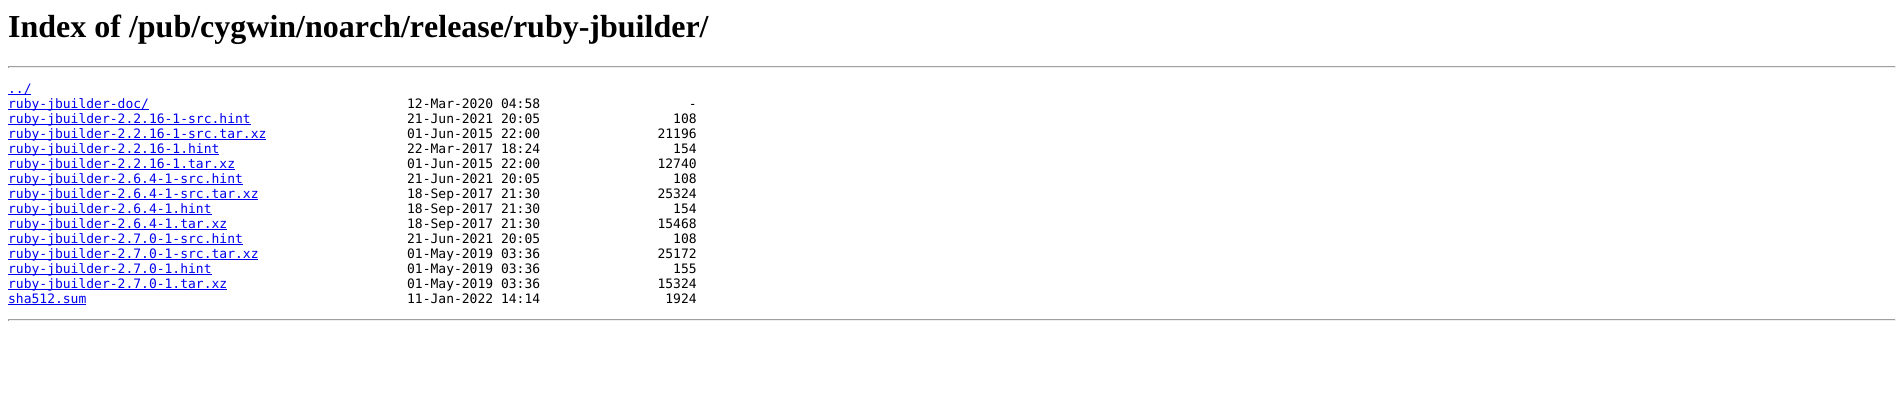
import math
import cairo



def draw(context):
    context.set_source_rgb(1, 1, 1)
    context.paint()
    context.set_source_rgb(159 / 255, 159 / 255, 159 / 255)
    context.rectangle(8, 66, 1888, 1)
    context.fill()
    context.set_source_rgb(238 / 255, 238 / 255, 238 / 255)
    context.rectangle(1895, 66, 1, 2)
    context.fill()
    context.rectangle(8, 67, 1888, 1)
    context.fill()
    context.set_source_rgb(159 / 255, 159 / 255, 159 / 255)
    context.rectangle(8, 66, 1, 2)
    context.fill()
    context.set_source_rgb(0, 0, 238 / 255)
    context.rectangle(8, 94, 23, 1)
    context.fill()
    context.rectangle(8, 109, 141, 1)
    context.fill()
    context.rectangle(8, 124, 243, 1)
    context.fill()
    context.rectangle(8, 139, 258, 1)
    context.fill()
    context.rectangle(8, 154, 211, 1)
    context.fill()
    context.rectangle(8, 169, 227, 1)
    context.fill()
    context.rectangle(8, 184, 235, 1)
    context.fill()
    context.rectangle(8, 199, 250, 1)
    context.fill()
    context.rectangle(8, 214, 204, 1)
    context.fill()
    context.rectangle(8, 229, 219, 1)
    context.fill()
    context.rectangle(8, 244, 235, 1)
    context.fill()
    context.rectangle(8, 259, 250, 1)
    context.fill()
    context.rectangle(8, 274, 204, 1)
    context.fill()
    context.rectangle(8, 289, 219, 1)
    context.fill()
    context.rectangle(8, 304, 78, 1)
    context.fill()
    context.set_source_rgb(159 / 255, 159 / 255, 159 / 255)
    context.rectangle(8, 319, 1888, 1)
    context.fill()
    context.set_source_rgb(238 / 255, 238 / 255, 238 / 255)
    context.rectangle(1895, 319, 1, 2)
    context.fill()
    context.rectangle(8, 320, 1888, 1)
    context.fill()
    context.set_source_rgb(159 / 255, 159 / 255, 159 / 255)
    context.rectangle(8, 319, 1, 2)
    context.fill()
    context.select_font_face("Liberation Serif", cairo.FontSlant.NORMAL, cairo.FontWeight.BOLD)
    context.set_font_size(32)
    context.set_source_rgb(0, 0, 0)
    context.move_to(8, 37)
    context.show_text("Index of /pub/cygwin/noarch/release/ruby-jbuilder/")
    context.select_font_face("DejaVu Sans Mono")
    context.set_font_size(13)
    context.set_source_rgb(0, 0, 238 / 255)
    context.move_to(8, 93)
    context.show_text("../")
    context.move_to(8, 108)
    context.show_text("ruby-jbuilder-doc/")
    context.set_source_rgb(0, 0, 0)
    context.move_to(407, 108)
    context.show_text("12-Mar-2020 04:58                   -")
    context.set_source_rgb(0, 0, 238 / 255)
    context.move_to(8, 123)
    context.show_text("ruby-jbuilder-2.2.16-1-src.hint")
    context.set_source_rgb(0, 0, 0)
    context.move_to(407, 123)
    context.show_text("21-Jun-2021 20:05                 108")
    context.set_source_rgb(0, 0, 238 / 255)
    context.move_to(8, 138)
    context.show_text("ruby-jbuilder-2.2.16-1-src.tar.xz")
    context.set_source_rgb(0, 0, 0)
    context.move_to(407, 138)
    context.show_text("01-Jun-2015 22:00               21196")
    context.set_source_rgb(0, 0, 238 / 255)
    context.move_to(8, 153)
    context.show_text("ruby-jbuilder-2.2.16-1.hint")
    context.set_source_rgb(0, 0, 0)
    context.move_to(407, 153)
    context.show_text("22-Mar-2017 18:24                 154")
    context.set_source_rgb(0, 0, 238 / 255)
    context.move_to(8, 168)
    context.show_text("ruby-jbuilder-2.2.16-1.tar.xz")
    context.set_source_rgb(0, 0, 0)
    context.move_to(407, 168)
    context.show_text("01-Jun-2015 22:00               12740")
    context.set_source_rgb(0, 0, 238 / 255)
    context.move_to(8, 183)
    context.show_text("ruby-jbuilder-2.6.4-1-src.hint")
    context.set_source_rgb(0, 0, 0)
    context.move_to(407, 183)
    context.show_text("21-Jun-2021 20:05                 108")
    context.set_source_rgb(0, 0, 238 / 255)
    context.move_to(8, 198)
    context.show_text("ruby-jbuilder-2.6.4-1-src.tar.xz")
    context.set_source_rgb(0, 0, 0)
    context.move_to(407, 198)
    context.show_text("18-Sep-2017 21:30               25324")
    context.set_source_rgb(0, 0, 238 / 255)
    context.move_to(8, 213)
    context.show_text("ruby-jbuilder-2.6.4-1.hint")
    context.set_source_rgb(0, 0, 0)
    context.move_to(407, 213)
    context.show_text("18-Sep-2017 21:30                 154")
    context.set_source_rgb(0, 0, 238 / 255)
    context.move_to(8, 228)
    context.show_text("ruby-jbuilder-2.6.4-1.tar.xz")
    context.set_source_rgb(0, 0, 0)
    context.move_to(407, 228)
    context.show_text("18-Sep-2017 21:30               15468")
    context.set_source_rgb(0, 0, 238 / 255)
    context.move_to(8, 243)
    context.show_text("ruby-jbuilder-2.7.0-1-src.hint")
    context.set_source_rgb(0, 0, 0)
    context.move_to(407, 243)
    context.show_text("21-Jun-2021 20:05                 108")
    context.set_source_rgb(0, 0, 238 / 255)
    context.move_to(8, 258)
    context.show_text("ruby-jbuilder-2.7.0-1-src.tar.xz")
    context.set_source_rgb(0, 0, 0)
    context.move_to(407, 258)
    context.show_text("01-May-2019 03:36               25172")
    context.set_source_rgb(0, 0, 238 / 255)
    context.move_to(8, 273)
    context.show_text("ruby-jbuilder-2.7.0-1.hint")
    context.set_source_rgb(0, 0, 0)
    context.move_to(407, 273)
    context.show_text("01-May-2019 03:36                 155")
    context.set_source_rgb(0, 0, 238 / 255)
    context.move_to(8, 288)
    context.show_text("ruby-jbuilder-2.7.0-1.tar.xz")
    context.set_source_rgb(0, 0, 0)
    context.move_to(407, 288)
    context.show_text("01-May-2019 03:36               15324")
    context.set_source_rgb(0, 0, 238 / 255)
    context.move_to(8, 303)
    context.show_text("sha512.sum")
    context.set_source_rgb(0, 0, 0)
    context.move_to(407, 303)
    context.show_text("11-Jan-2022 14:14                1924")


surface = cairo.ImageSurface(cairo.Format.RGB24, 1904, 415)
context = cairo.Context(surface)
options = cairo.FontOptions()
options.set_hint_metrics(cairo.HintMetrics.OFF)
options.set_hint_style(cairo.HintStyle.NONE)
context.set_font_options(options)
context.set_miter_limit(4)
draw(context)
surface.write_to_png("out.png")
